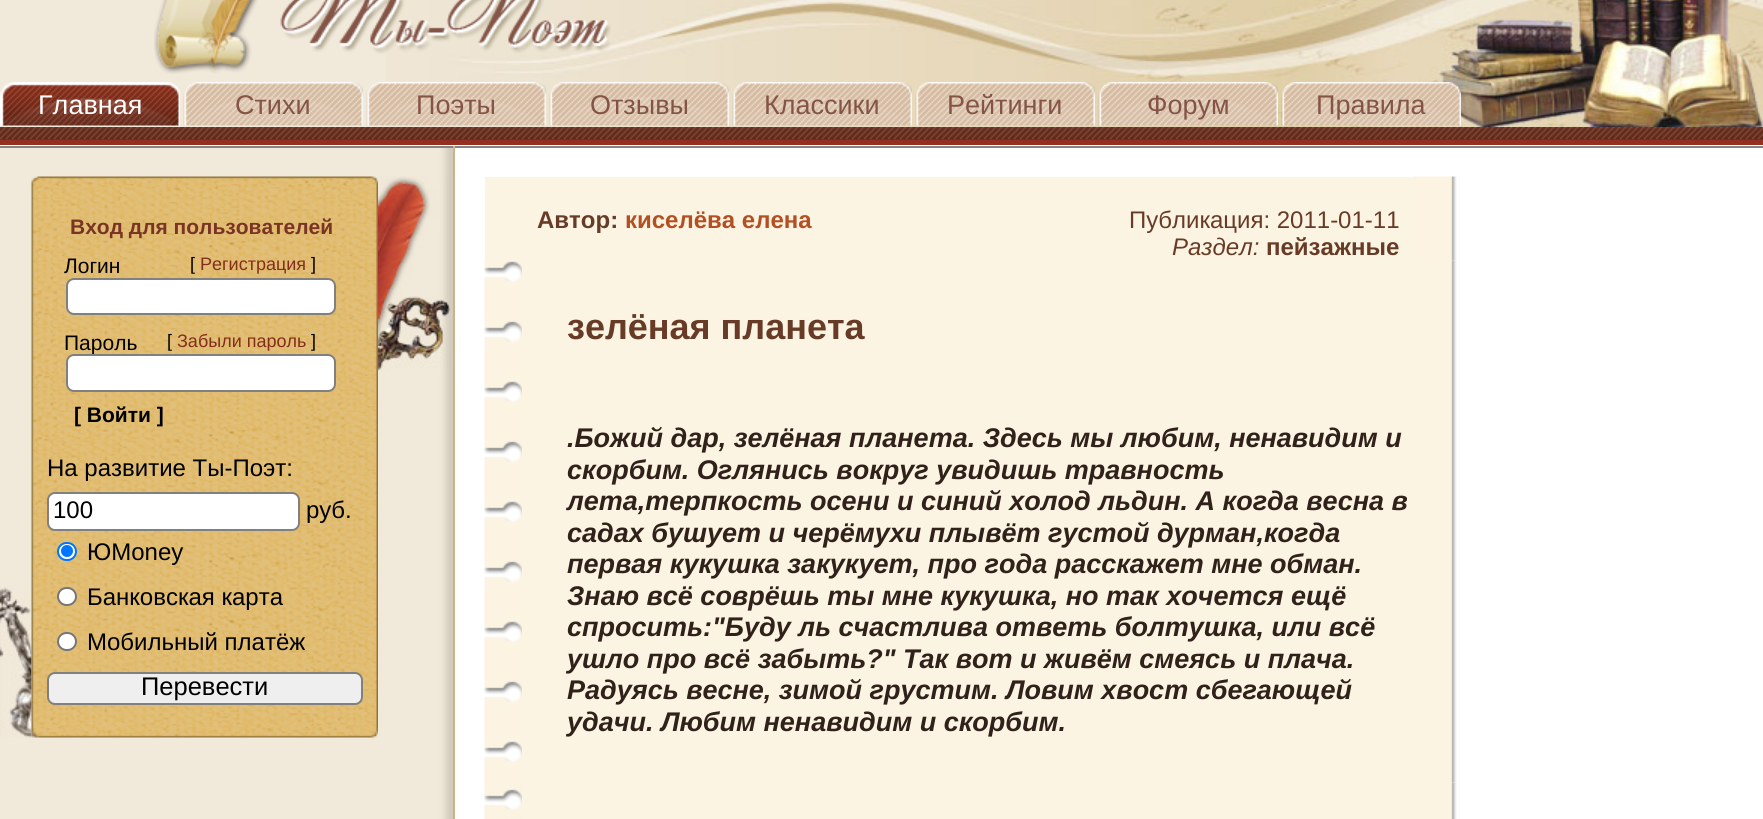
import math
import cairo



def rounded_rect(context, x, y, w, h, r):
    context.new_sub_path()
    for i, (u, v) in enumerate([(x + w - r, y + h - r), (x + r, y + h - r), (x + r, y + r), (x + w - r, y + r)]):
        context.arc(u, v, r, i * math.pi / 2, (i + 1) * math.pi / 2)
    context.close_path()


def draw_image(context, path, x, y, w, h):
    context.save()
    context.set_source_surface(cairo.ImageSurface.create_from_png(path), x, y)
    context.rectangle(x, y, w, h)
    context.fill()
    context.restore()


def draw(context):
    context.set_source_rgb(1, 1, 1)
    context.paint()
    context.set_source_rgb(241 / 255, 233 / 255, 218 / 255)
    context.rectangle(0, 0, 386, 127)
    context.fill()
    draw_image(context, "images/1.png", 386, 0, 1377, 127)
    draw_image(context, "images/2.png", 154, 0, 457, 74)
    draw_image(context, "images/3.png", 0, 82, 180, 44)
    draw_image(context, "images/4.png", 183, 82, 180, 44)
    draw_image(context, "images/5.png", 366, 82, 180, 44)
    draw_image(context, "images/6.png", 549, 82, 180, 44)
    draw_image(context, "images/7.png", 732, 82, 180, 44)
    draw_image(context, "images/8.png", 915, 82, 180, 44)
    draw_image(context, "images/9.png", 1098, 82, 180, 44)
    draw_image(context, "images/10.png", 1281, 82, 180, 44)
    context.set_source_rgb(126 / 255, 42 / 255, 22 / 255)
    context.rectangle(0, 139, 1763, 1)
    context.fill()
    draw_image(context, "images/11.png", 0, 127, 1763, 12)
    context.set_source_rgb(146 / 255, 47 / 255, 31 / 255)
    context.rectangle(0, 140, 1763, 5)
    context.fill()
    context.set_source_rgb(131 / 255, 131 / 255, 131 / 255)
    context.rectangle(0, 146, 1763, 2)
    context.fill()
    context.set_source_rgb(241 / 255, 233 / 255, 217 / 255)
    context.rectangle(0, 148, 438, 671)
    context.fill()
    draw_image(context, "images/12.png", 438, 148, 15, 671)
    context.set_source_rgb(202 / 255, 179 / 255, 137 / 255)
    context.rectangle(453, 146, 2, 673)
    context.fill()
    draw_image(context, "images/13.png", 31, 176, 347, 11)
    draw_image(context, "images/14.png", 378, 176, 73, 195)
    draw_image(context, "images/15.png", 0, 586, 32, 152)
    draw_image(context, "images/16.png", 31, 187, 347, 540)
    context.set_source_rgb(1, 1, 1)
    rounded_rect(context, 67, 279, 268, 35, 7)
    context.fill_preserve()
    context.set_source_rgb(128 / 255, 128 / 255, 128 / 255)
    context.stroke()
    context.set_source_rgb(1, 1, 1)
    rounded_rect(context, 48, 493, 251, 37, 7)
    context.fill_preserve()
    context.set_source_rgb(128 / 255, 128 / 255, 128 / 255)
    context.stroke()
    context.set_source_rgb(1, 1, 1)
    rounded_rect(context, 58, 543, 18, 17, 8.5)
    context.fill_preserve()
    context.set_source_rgb(0, 117 / 255, 1)
    context.stroke()
    context.arc(67, 551, 6, 0, 2 * math.pi)
    context.fill()
    context.set_source_rgb(1, 1, 1)
    rounded_rect(context, 58, 588, 18, 17, 8.5)
    context.fill_preserve()
    context.set_source_rgb(118 / 255, 118 / 255, 118 / 255)
    context.stroke()
    context.set_source_rgb(1, 1, 1)
    rounded_rect(context, 58, 633, 18, 17, 8.5)
    context.fill_preserve()
    context.set_source_rgb(118 / 255, 118 / 255, 118 / 255)
    context.stroke()
    context.set_source_rgb(239 / 255, 239 / 255, 239 / 255)
    rounded_rect(context, 48, 673, 314, 31, 7)
    context.fill_preserve()
    context.set_source_rgb(128 / 255, 128 / 255, 128 / 255)
    context.stroke()
    draw_image(context, "images/17.png", 31, 727, 347, 11)
    context.set_source_rgb(252 / 255, 244 / 255, 226 / 255)
    context.rectangle(485, 177, 975, 642)
    context.fill()
    draw_image(context, "images/18.png", 1414, 176, 46, 85)
    draw_image(context, "images/19.png", 484, 260, 38, 523)
    draw_image(context, "images/20.png", 1451, 260, 9, 523)
    draw_image(context, "images/21.png", 484, 782, 38, 37)
    draw_image(context, "images/22.png", 1451, 782, 9, 37)
    context.select_font_face("Liberation Sans")
    context.set_font_size(27)
    context.set_source_rgb(1, 1, 1)
    context.move_to(38, 114)
    context.show_text("Главная")
    context.set_source_rgb(132 / 255, 85 / 255, 71 / 255)
    context.move_to(235, 114)
    context.show_text("Стихи")
    context.move_to(416, 114)
    context.show_text("Поэты")
    context.move_to(590, 114)
    context.show_text("Отзывы")
    context.move_to(764, 114)
    context.show_text("Классики")
    context.move_to(947, 114)
    context.show_text("Рейтинги")
    context.move_to(1147, 114)
    context.show_text("Форум")
    context.move_to(1316, 114)
    context.show_text("Правила")
    context.select_font_face("Liberation Sans", cairo.FontSlant.NORMAL, cairo.FontWeight.BOLD)
    context.set_font_size(21)
    context.set_source_rgb(122 / 255, 52 / 255, 36 / 255)
    context.move_to(70, 234)
    context.show_text("Вход для пользователей")
    context.select_font_face("Liberation Sans")
    context.set_source_rgb(0, 0, 0)
    context.move_to(64, 273)
    context.show_text("Логин")
    context.set_font_size(18)
    context.move_to(190, 270)
    context.show_text("[")
    context.set_source_rgb(132 / 255, 45 / 255, 27 / 255)
    context.move_to(200, 270)
    context.show_text("Регистрация")
    context.set_source_rgb(0, 0, 0)
    context.move_to(311, 270)
    context.show_text("]")
    context.set_font_size(21)
    context.move_to(64, 350)
    context.show_text("Пароль")
    context.set_font_size(18)
    context.move_to(167, 347)
    context.show_text("[")
    context.set_source_rgb(132 / 255, 45 / 255, 27 / 255)
    context.move_to(177, 347)
    context.show_text("Забыли пароль")
    context.set_source_rgb(0, 0, 0)
    context.move_to(311, 347)
    context.show_text("]")
    context.set_source_rgb(1, 1, 1)
    rounded_rect(context, 67, 355, 268, 36, 7)
    context.fill_preserve()
    context.set_source_rgb(128 / 255, 128 / 255, 128 / 255)
    context.stroke()
    context.select_font_face("Liberation Sans", cairo.FontSlant.NORMAL, cairo.FontWeight.BOLD)
    context.set_font_size(21)
    context.set_source_rgb(0, 0, 0)
    context.move_to(74, 422)
    context.show_text("[ Войти ]")
    context.select_font_face("Liberation Sans")
    context.set_font_size(24)
    context.move_to(47, 476)
    context.show_text("На развитие Ты-Поэт:")
    context.move_to(53, 518)
    context.show_text("100")
    context.move_to(306, 518)
    context.show_text("руб.")
    context.move_to(87, 560)
    context.show_text("ЮMoney")
    context.move_to(87, 605)
    context.show_text("Банковская карта")
    context.move_to(87, 650)
    context.show_text("Мобильный платёж")
    context.set_font_size(25.5)
    context.move_to(141, 695)
    context.show_text("Перевести")
    context.select_font_face("Liberation Sans", cairo.FontSlant.NORMAL, cairo.FontWeight.BOLD)
    context.set_font_size(24)
    context.set_source_rgb(104 / 255, 59 / 255, 39 / 255)
    context.move_to(537, 228)
    context.show_text("Автор:")
    context.set_source_rgb(179 / 255, 79 / 255, 34 / 255)
    context.move_to(625, 228)
    context.show_text("киселёва елена")
    context.select_font_face("Liberation Sans")
    context.set_source_rgb(104 / 255, 59 / 255, 39 / 255)
    context.move_to(1129, 228)
    context.show_text("Публикация: 2011-01-11")
    context.select_font_face("Liberation Sans", cairo.FontSlant.ITALIC)
    context.move_to(1172, 255)
    context.show_text("Раздел:")
    context.select_font_face("Liberation Sans", cairo.FontSlant.NORMAL, cairo.FontWeight.BOLD)
    context.move_to(1266, 255)
    context.show_text("пейзажные")
    context.set_font_size(36)
    context.move_to(567, 339)
    context.show_text("зелёная планета")
    context.select_font_face("Liberation Sans", cairo.FontSlant.ITALIC, cairo.FontWeight.BOLD)
    context.set_font_size(27)
    context.set_source_rgb(48 / 255, 33 / 255, 26 / 255)
    context.move_to(567, 447)
    context.show_text(".Божий дар, зелёная планета. Здесь мы любим, ненавидим и")
    context.move_to(567, 479)
    context.show_text("скорбим. Оглянись вокруг увидишь травность")
    context.move_to(567, 510)
    context.show_text("лета,терпкость осени и синий холод льдин. А когда весна в")
    context.move_to(567, 542)
    context.show_text("садах бушует и черёмухи плывёт густой дурман,когда")
    context.move_to(567, 573)
    context.show_text("первая кукушка закукует, про года расскажет мне обман.")
    context.move_to(567, 605)
    context.show_text("Знаю всё соврёшь ты мне кукушка, но так хочется ещё")
    context.move_to(567, 636)
    context.show_text("спросить:\"Буду ль счастлива ответь болтушка, или всё")
    context.move_to(567, 668)
    context.show_text("ушло про всё забыть?\" Так вот и живём смеясь и плача.")
    context.move_to(567, 699)
    context.show_text("Радуясь весне, зимой грустим. Ловим хвост сбегающей")
    context.move_to(567, 731)
    context.show_text("удачи. Любим ненавидим и скорбим.")


surface = cairo.ImageSurface(cairo.Format.RGB24, 1763, 819)
context = cairo.Context(surface)
options = cairo.FontOptions()
options.set_hint_metrics(cairo.HintMetrics.OFF)
options.set_hint_style(cairo.HintStyle.NONE)
context.set_font_options(options)
context.set_miter_limit(4)
draw(context)
surface.write_to_png("out.png")
